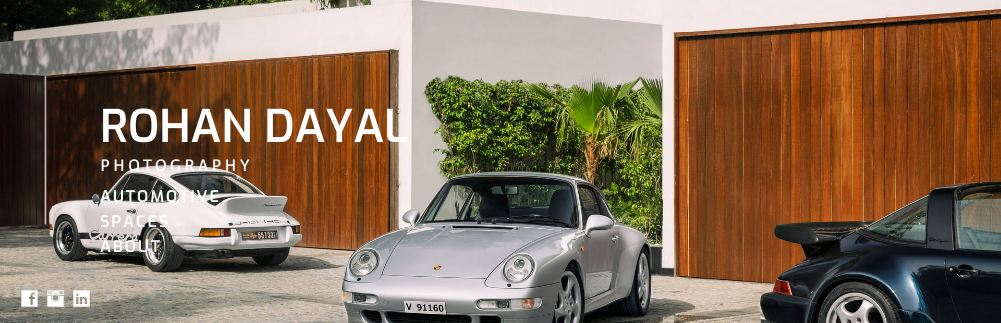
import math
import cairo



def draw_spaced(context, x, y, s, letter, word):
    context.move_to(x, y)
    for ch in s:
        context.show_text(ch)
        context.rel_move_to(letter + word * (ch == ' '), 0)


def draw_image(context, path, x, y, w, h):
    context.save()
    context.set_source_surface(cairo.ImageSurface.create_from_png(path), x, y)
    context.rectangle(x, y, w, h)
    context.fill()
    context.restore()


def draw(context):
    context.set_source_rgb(1, 1, 1)
    context.paint()
    draw_image(context, "images/1.png", 0, 0, 1001, 323)
    draw_image(context, "images/2.png", 21, 290, 17, 17)
    draw_image(context, "images/3.png", 47, 290, 17, 17)
    draw_image(context, "images/4.png", 73, 290, 17, 17)
    context.select_font_face("Exo SemiBold")
    context.set_font_size(45)
    context.set_source_rgb(1, 1, 1)
    context.move_to(100, 142)
    context.show_text("ROHAN DAYAL")
    context.select_font_face("Convergence")
    context.set_font_size(16)
    draw_spaced(context, 100, 171, "PHOTOGRAPHY", 3, 0)
    context.select_font_face("Exo SemiBold")
    draw_spaced(context, 100, 202, "AUTOMOTIVE", 2, 0)
    draw_spaced(context, 100, 227, "SPACES", 2, 0)
    draw_spaced(context, 100, 252, "ABOUT", 2, 0)


surface = cairo.ImageSurface(cairo.Format.RGB24, 1001, 323)
context = cairo.Context(surface)
options = cairo.FontOptions()
options.set_hint_metrics(cairo.HintMetrics.OFF)
options.set_hint_style(cairo.HintStyle.NONE)
context.set_font_options(options)
context.set_miter_limit(4)
draw(context)
surface.write_to_png("out.png")
